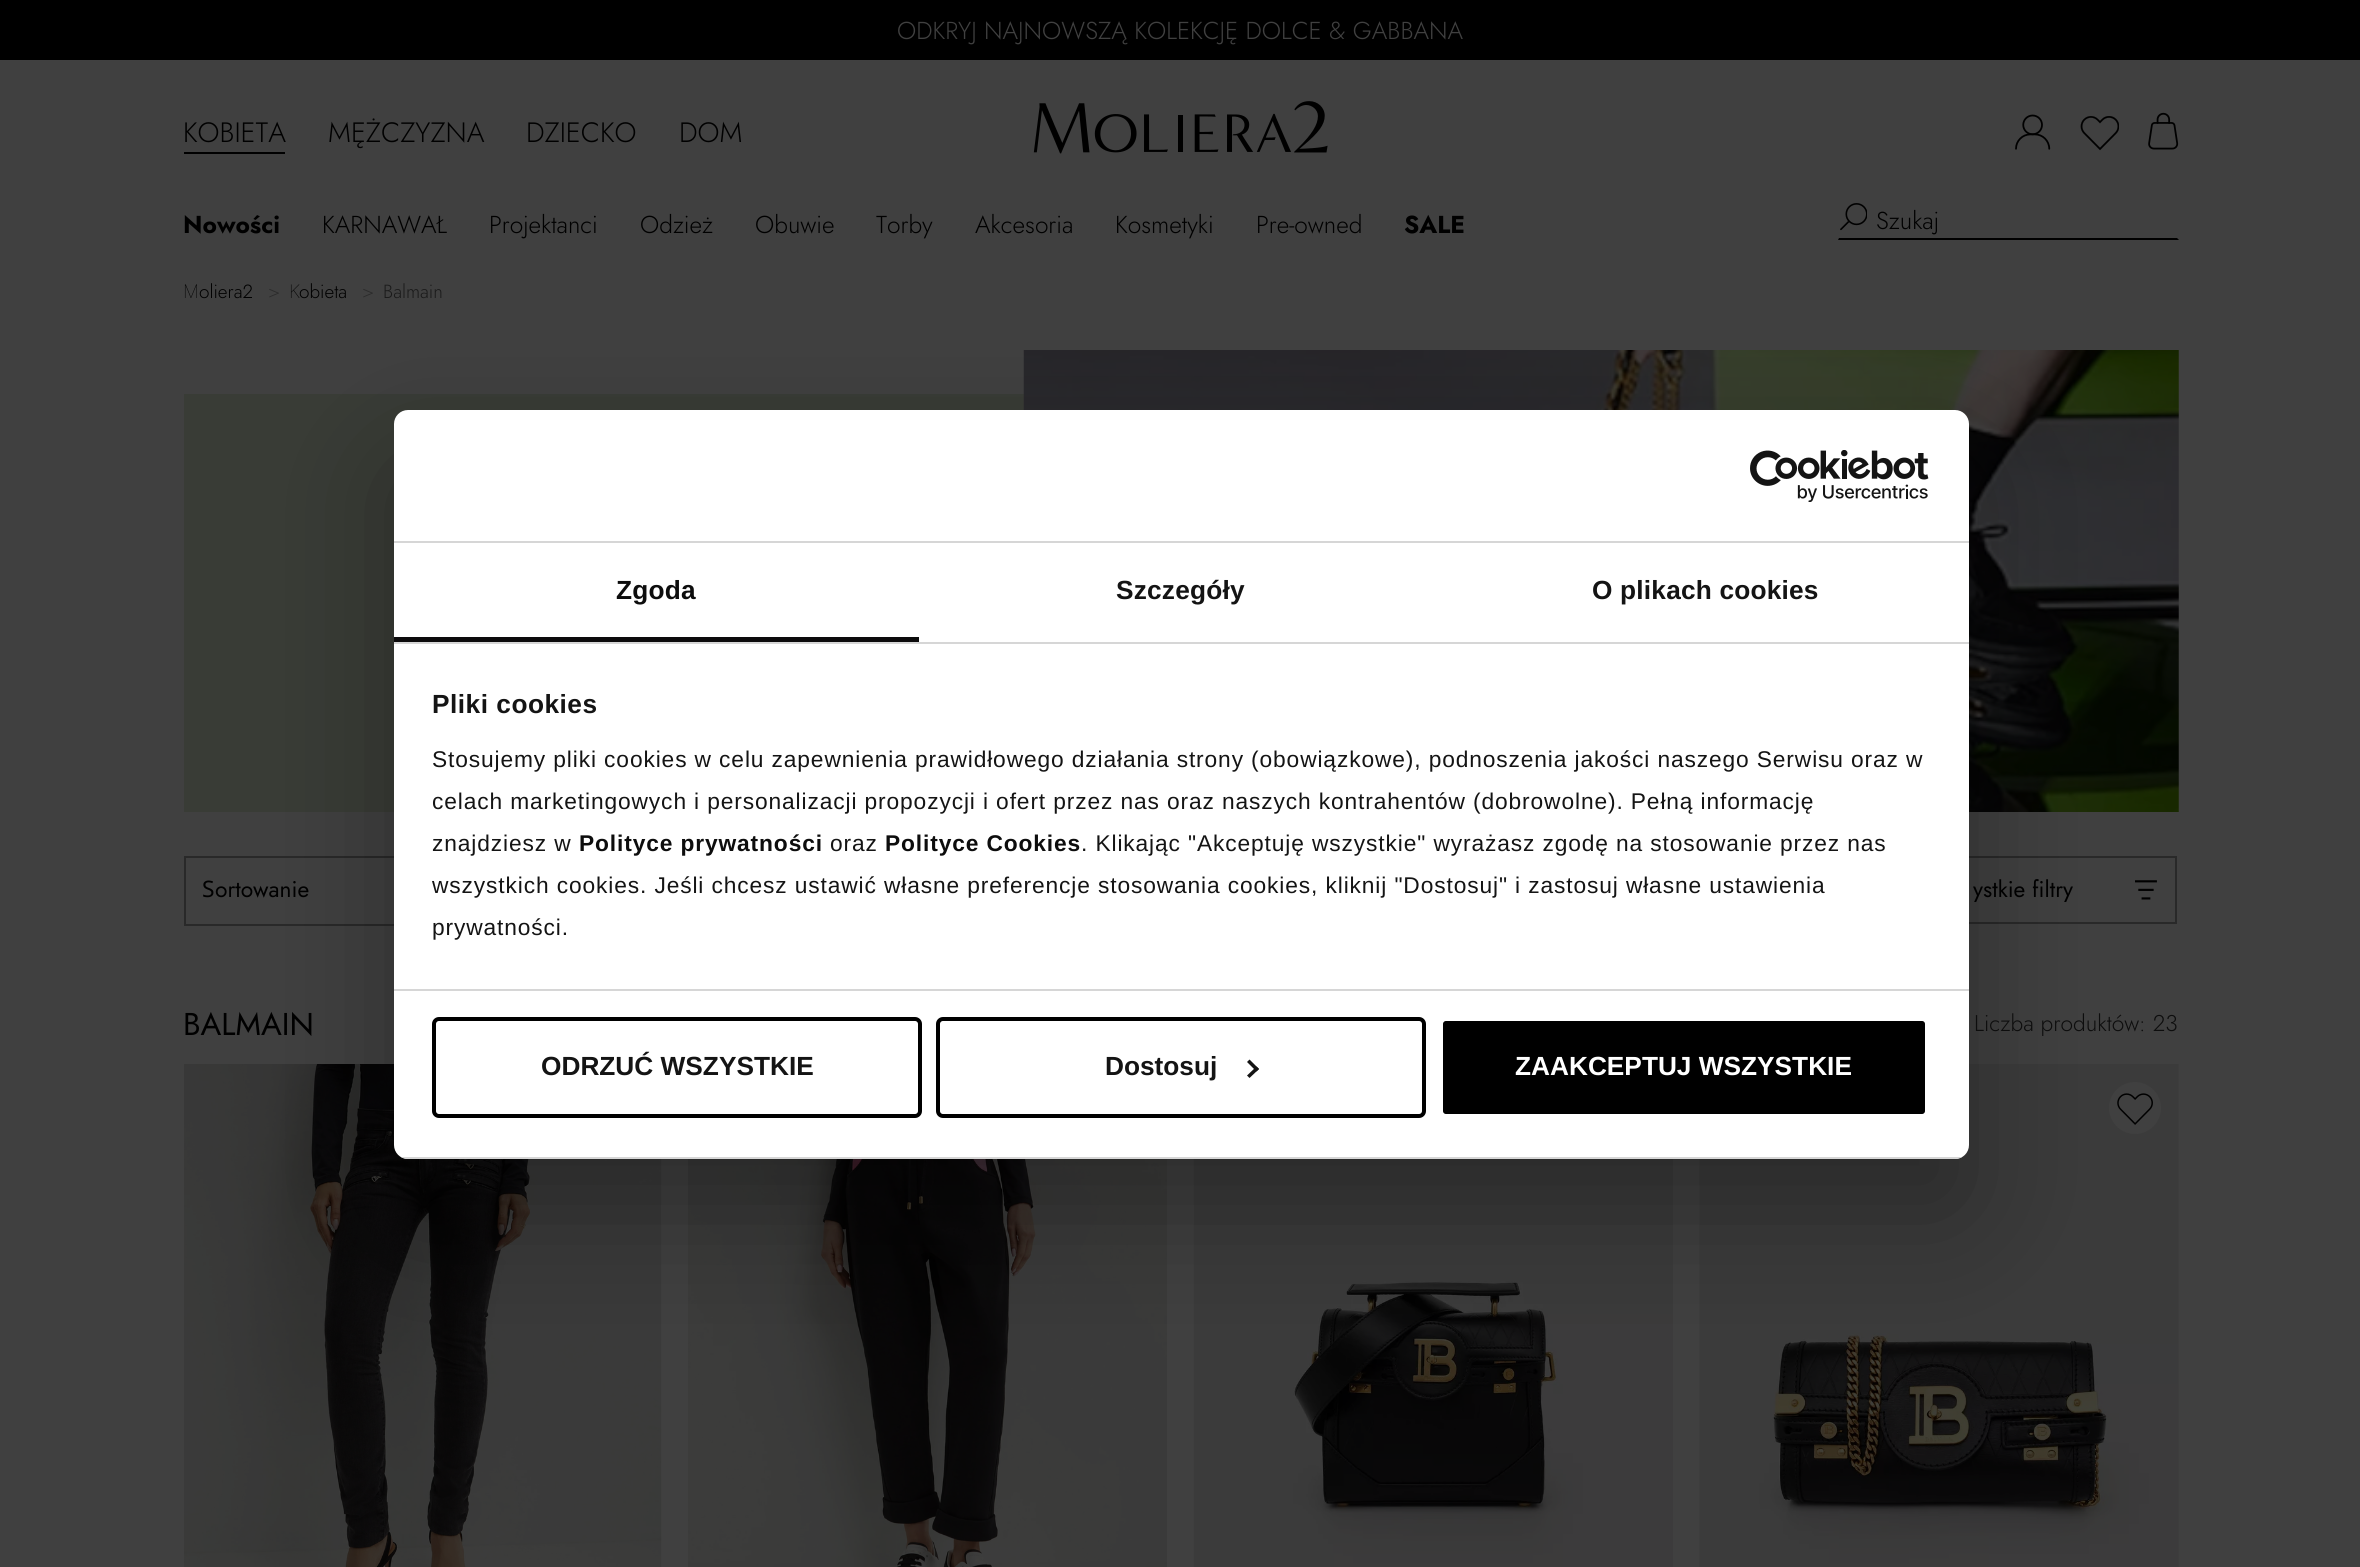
import math
import cairo



def draw_spaced(context, x, y, s, letter, word):
    context.move_to(x, y)
    for ch in s:
        context.show_text(ch)
        context.rel_move_to(letter + word * (ch == ' '), 0)


def rounded_rect(context, x, y, w, h, r):
    context.new_sub_path()
    for i, (u, v) in enumerate([(x + w - r, y + h - r), (x + r, y + h - r), (x + r, y + r), (x + w - r, y + r)]):
        context.arc(u, v, r, i * math.pi / 2, (i + 1) * math.pi / 2)
    context.close_path()


def draw_shadow(context, x, y, w, h, r, blur, alpha):
    context.push_group_with_content(cairo.Content.ALPHA)
    context.set_operator(cairo.Operator.SOURCE)
    for i in range(15, -16, -2):
        e = blur * i / 6
        if min(w, h) + 2 * e > 0:
            context.set_source_rgba(0, 0, 0, alpha * math.erfc((i - 1) / 8.5) / 2)
            rounded_rect(context, x - e, y - e, w + 2 * e, h + 2 * e, max(0, min(r + e + blur * .6, min(w, h) / 2 + e)))
            context.fill()
    context.mask(context.pop_group())


def draw_image(context, path, x, y, w, h):
    context.save()
    context.set_source_surface(cairo.ImageSurface.create_from_png(path), x, y)
    context.rectangle(x, y, w, h)
    context.fill()
    context.restore()


def draw(context):
    context.set_source_rgb(64 / 255, 64 / 255, 64 / 255)
    context.paint()
    context.set_source_rgb(0, 0, 0)
    context.rectangle(0, 0, 2360, 60)
    context.fill()
    draw_image(context, "images/1.png", 1033, 101, 295, 53)
    context.rectangle(184, 152, 101, 2)
    context.fill()
    draw_image(context, "images/2.png", 2015, 114, 36, 36)
    draw_image(context, "images/3.png", 2080, 116, 39, 35)
    draw_image(context, "images/4.png", 2148, 112, 31, 38)
    context.new_path()
    context.move_to(2179, 240)
    context.line_to(1838, 240)
    context.line_to(1839, 238)
    context.line_to(2177, 238)
    context.close_path()
    context.fill()
    draw_image(context, "images/5.png", 1840, 203, 27, 28)
    context.set_source_rgb(57 / 255, 60 / 255, 54 / 255)
    context.rectangle(184, 394, 840, 418)
    context.fill()
    draw_image(context, "images/6.png", 1023, 350, 1156, 462)
    context.rectangle(185, 857, 301, 68)
    context.set_source_rgb(41 / 255, 41 / 255, 41 / 255)
    context.stroke()
    draw_image(context, "images/7.png", 2135, 880, 22, 20)
    context.rectangle(1875, 857, 301, 66)
    context.stroke()
    draw_image(context, "images/8.png", 184, 1064, 478, 503)
    draw_image(context, "images/9.png", 688, 1159, 479, 408)
    draw_image(context, "images/10.png", 1193, 1159, 480, 408)
    draw_image(context, "images/11.png", 1699, 1064, 480, 503)
    draw_image(context, "images/12.png", 2109, 1082, 52, 52)
    context.set_source_rgb(0, 0, 0)
    draw_shadow(context, 394, 466, 1575, 749, 14, 59.5, 0.3)
    context.set_source_rgb(1, 1, 1)
    rounded_rect(context, 394, 410, 1575, 749, 14)
    context.fill()
    context.set_source_rgb(214 / 255, 214 / 255, 214 / 255)
    context.rectangle(394, 541, 1575, 2)
    context.fill()
    draw_image(context, "images/13.png", 1750, 450, 179, 52)
    context.rectangle(394, 642, 1575, 2)
    context.fill()
    context.set_source_rgb(12 / 255, 11 / 255, 12 / 255)
    context.rectangle(394, 637, 525, 5)
    context.fill()
    context.set_source_rgb(214 / 255, 214 / 255, 214 / 255)
    context.rectangle(394, 989, 1575, 2)
    context.fill()
    context.save()
    rounded_rect(context, 394, 410, 1575, 749, 14)
    context.clip()
    context.rectangle(394, 1157, 1575, 2)
    context.fill()
    context.restore()
    rounded_rect(context, 434, 1019, 486, 97, 5)
    context.set_source_rgb(0, 0, 0)
    context.set_line_width(4)
    context.stroke()
    rounded_rect(context, 938, 1019, 486, 97, 5)
    context.stroke()
    context.set_source_rgb(20 / 255, 20 / 255, 20 / 255)
    context.new_path()
    context.move_to(1249.5, 1059.5)
    context.line_to(1259, 1069)
    context.line_to(1256.5, 1071.5)
    context.line_to(1247, 1062)
    context.close_path()
    context.fill()
    context.new_path()
    context.move_to(1256.5, 1066.5)
    context.line_to(1259, 1069)
    context.line_to(1249.5, 1078)
    context.line_to(1247, 1075.5)
    context.close_path()
    context.fill()
    context.set_source_rgb(0, 0, 0)
    rounded_rect(context, 1441, 1019, 486, 97, 5)
    context.fill_preserve()
    context.set_source_rgb(1, 1, 1)
    context.stroke()
    context.select_font_face("Jost Light")
    context.set_font_size(24.5)
    context.set_source_rgb(64 / 255, 64 / 255, 64 / 255)
    context.move_to(897, 39)
    context.show_text("ODKRYJ NAJNOWSZĄ KOLEKCJĘ DOLCE & GABBANA")
    context.set_font_size(28)
    context.set_source_rgb(0, 0, 0)
    context.move_to(328, 142)
    context.show_text("MĘŻCZYZNA")
    context.move_to(183, 142)
    context.show_text("KOBIETA")
    context.select_font_face("Jost", cairo.FontSlant.NORMAL, cairo.FontWeight.BOLD)
    context.set_font_size(24.5)
    context.move_to(183, 233)
    context.show_text("Nowości")
    context.select_font_face("Jost Light")
    context.move_to(322, 233)
    context.show_text("KARNAWAŁ")
    context.move_to(489, 233)
    context.show_text("Projektanci")
    context.move_to(640, 233)
    context.show_text("Odzież")
    context.move_to(755, 233)
    context.show_text("Obuwie")
    context.move_to(876, 233)
    context.show_text("Torby")
    context.move_to(975, 233)
    context.show_text("Akcesoria")
    context.move_to(1115, 233)
    context.show_text("Kosmetyki")
    context.move_to(1256, 233)
    context.show_text("Pre-owned")
    context.select_font_face("Jost", cairo.FontSlant.NORMAL, cairo.FontWeight.BOLD)
    context.move_to(1404, 233)
    context.show_text("SALE")
    context.select_font_face("Jost Light")
    context.set_font_size(28)
    context.move_to(526, 142)
    context.show_text("DZIECKO")
    context.move_to(679, 142)
    context.show_text("DOM")
    context.set_font_size(24.5)
    context.move_to(1876, 229)
    context.show_text("Szukaj")
    context.select_font_face("Noto Sans Thin")
    context.set_font_size(19)
    context.move_to(183, 298)
    context.show_text("M")
    context.select_font_face("Jost Light")
    context.move_to(199, 298)
    context.show_text("oliera2")
    context.set_source_rgb(43 / 255, 43 / 255, 43 / 255)
    context.move_to(268, 298)
    context.show_text(">")
    context.select_font_face("Noto Sans Thin")
    context.set_source_rgb(0, 0, 0)
    context.move_to(289, 298)
    context.show_text("K")
    context.select_font_face("Jost Light")
    context.move_to(299, 298)
    context.show_text("obieta")
    context.set_source_rgb(43 / 255, 43 / 255, 43 / 255)
    context.move_to(362, 298)
    context.show_text(">")
    context.set_source_rgb(26 / 255, 26 / 255, 26 / 255)
    context.move_to(383, 298)
    context.show_text("Balmain")
    context.select_font_face("Noto Sans")
    context.set_font_size(22.75)
    context.set_source_rgb(0, 0, 0)
    context.move_to(202, 897)
    context.show_text("S")
    context.select_font_face("Jost")
    context.move_to(215, 897)
    context.show_text("ortowanie")
    context.move_to(1973, 897)
    context.show_text("ystkie filtry")
    context.set_font_size(31.5)
    context.move_to(183, 1035)
    context.show_text("BALMAIN")
    context.select_font_face("Jost Light")
    context.set_font_size(22.75)
    context.set_source_rgb(13 / 255, 13 / 255, 13 / 255)
    context.move_to(1974, 1031)
    context.show_text("Liczba produktów: 23")
    context.select_font_face("Liberation Sans", cairo.FontSlant.NORMAL, cairo.FontWeight.BOLD)
    context.set_font_size(26.25)
    draw_spaced(context, 616, 599, "Zgoda", 0.2, 0)
    context.set_source_rgb(20 / 255, 20 / 255, 20 / 255)
    draw_spaced(context, 1116, 599, "Szczegóły", 0.2, 0)
    draw_spaced(context, 1592, 599, "O plikach cookies", 0.2, 0)
    draw_spaced(context, 432, 713, "Pliki cookies", 0.5, 0)
    context.select_font_face("Liberation Sans")
    context.set_font_size(22.75)
    draw_spaced(context, 432, 767, "Stosujemy pliki cookies w celu zapewnienia prawidłowego działania strony (obowiązkowe), podnoszenia jakości naszego Serwisu oraz w", 0.88, 0)
    draw_spaced(context, 432, 809, "celach marketingowych i personalizacji propozycji i ofert przez nas oraz naszych kontrahentów (dobrowolne). Pełną informację", 0.88, 0)
    draw_spaced(context, 432, 851, "znajdziesz w", 0.88, 0)
    context.select_font_face("Liberation Sans", cairo.FontSlant.NORMAL, cairo.FontWeight.BOLD)
    context.set_source_rgb(13 / 255, 13 / 255, 13 / 255)
    draw_spaced(context, 579, 851, "Polityce prywatności", 0.88, 0)
    context.select_font_face("Liberation Sans")
    context.set_source_rgb(20 / 255, 20 / 255, 20 / 255)
    draw_spaced(context, 830, 851, "oraz", 0.88, 0)
    context.select_font_face("Liberation Sans", cairo.FontSlant.NORMAL, cairo.FontWeight.BOLD)
    context.set_source_rgb(13 / 255, 13 / 255, 13 / 255)
    draw_spaced(context, 885, 851, "Polityce Cookies", 0.88, 0)
    context.select_font_face("Liberation Sans")
    context.set_source_rgb(20 / 255, 20 / 255, 20 / 255)
    draw_spaced(context, 1081, 851, ". Klikając \"Akceptuję wszystkie\" wyrażasz zgodę na stosowanie przez nas", 0.88, 0)
    draw_spaced(context, 432, 893, "wszystkich cookies. Jeśli chcesz ustawić własne preferencje stosowania cookies, kliknij \"Dostosuj\" i zastosuj własne ustawienia", 0.88, 0)
    draw_spaced(context, 432, 935, "prywatności.", 0.88, 0)
    context.select_font_face("Liberation Sans", cairo.FontSlant.NORMAL, cairo.FontWeight.BOLD)
    context.set_font_size(26.25)
    context.move_to(541, 1075)
    context.show_text("ODRZUĆ WSZYSTKIE")
    context.move_to(1105, 1075)
    context.show_text("Dostosuj")
    context.set_source_rgb(1, 1, 1)
    context.move_to(1515, 1075)
    context.show_text("ZAAKCEPTUJ WSZYSTKIE")


surface = cairo.ImageSurface(cairo.Format.RGB24, 2360, 1567)
context = cairo.Context(surface)
options = cairo.FontOptions()
options.set_hint_metrics(cairo.HintMetrics.OFF)
options.set_hint_style(cairo.HintStyle.NONE)
context.set_font_options(options)
context.set_miter_limit(4)
draw(context)
surface.write_to_png("out.png")
